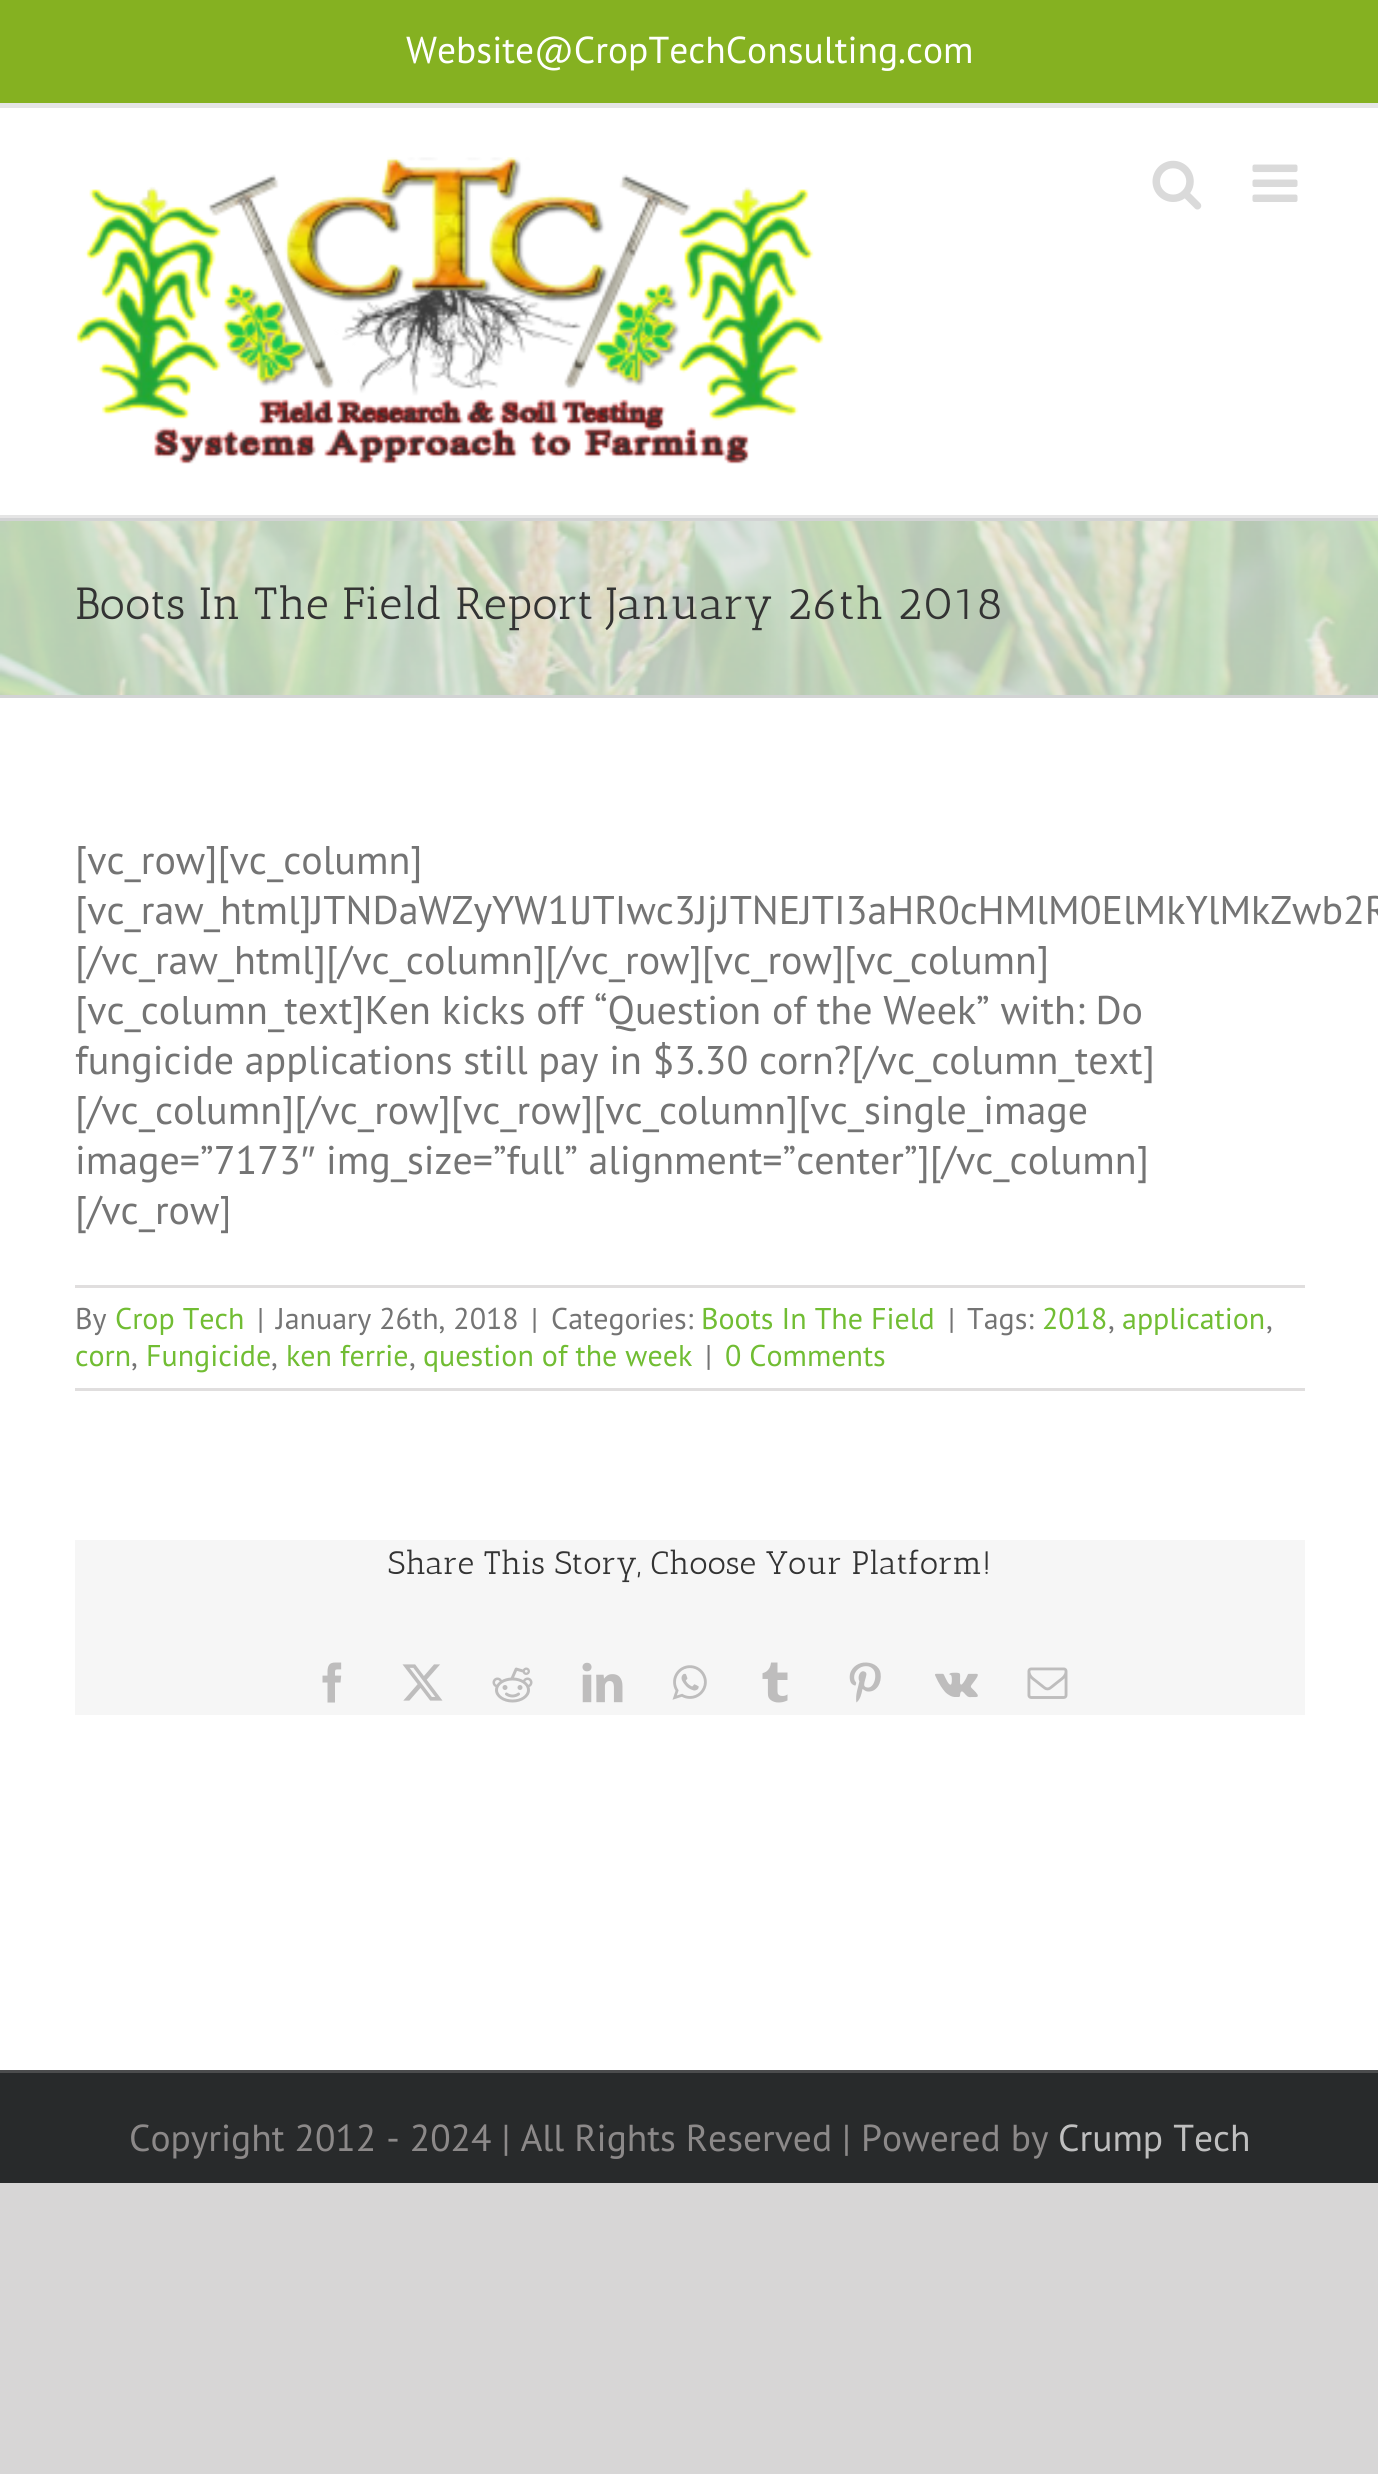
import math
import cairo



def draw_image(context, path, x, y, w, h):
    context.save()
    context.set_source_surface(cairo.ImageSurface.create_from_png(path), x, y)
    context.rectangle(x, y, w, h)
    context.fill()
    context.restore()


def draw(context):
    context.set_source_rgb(215 / 255, 214 / 255, 214 / 255)
    context.paint()
    context.set_source_rgb(1, 1, 1)
    context.rectangle(0, 698, 1378, 1372)
    context.fill()
    context.set_source_rgb(133 / 255, 177 / 255, 33 / 255)
    context.rectangle(0, 0, 1378, 103)
    context.fill()
    context.set_source_rgb(229 / 255, 229 / 255, 229 / 255)
    context.rectangle(0, 103, 1378, 5)
    context.fill()
    context.set_source_rgb(1, 1, 1)
    context.rectangle(0, 108, 1378, 407)
    context.fill()
    context.set_source_rgb(229 / 255, 229 / 255, 229 / 255)
    context.rectangle(0, 515, 1378, 3)
    context.fill()
    draw_image(context, "images/1.png", 75, 157, 749, 307)
    draw_image(context, "images/2.png", 1152, 160, 50, 50)
    draw_image(context, "images/3.png", 1252, 164, 46, 38)
    context.set_source_rgb(245 / 255, 245 / 255, 245 / 255)
    context.rectangle(0, 521, 1378, 174)
    context.fill()
    draw_image(context, "images/4.png", 0, 521, 1378, 174)
    context.set_source_rgb(210 / 255, 211 / 255, 212 / 255)
    context.rectangle(0, 518, 1378, 3)
    context.fill()
    context.rectangle(0, 695, 1378, 3)
    context.fill()
    context.set_source_rgb(224 / 255, 222 / 255, 222 / 255)
    context.rectangle(75, 1285, 1230, 3)
    context.fill()
    context.rectangle(75, 1388, 1230, 3)
    context.fill()
    context.set_source_rgb(246 / 255, 246 / 255, 246 / 255)
    context.rectangle(75, 1540, 1230, 175)
    context.fill()
    draw_image(context, "images/5.png", 322, 1662, 20, 41)
    draw_image(context, "images/6.png", 402, 1664, 41, 37)
    draw_image(context, "images/7.png", 492, 1667, 41, 36)
    draw_image(context, "images/8.png", 582, 1662, 41, 41)
    draw_image(context, "images/9.png", 672, 1665, 35, 35)
    draw_image(context, "images/10.png", 762, 1662, 26, 41)
    draw_image(context, "images/11.png", 849, 1662, 32, 41)
    draw_image(context, "images/12.png", 935, 1672, 43, 26)
    draw_image(context, "images/13.png", 1027, 1667, 41, 32)
    context.set_source_rgb(40 / 255, 42 / 255, 43 / 255)
    context.rectangle(0, 2073, 1378, 110)
    context.fill()
    context.set_source_rgb(75 / 255, 76 / 255, 77 / 255)
    context.rectangle(0, 2070, 1378, 3)
    context.fill()
    context.select_font_face("PT Sans")
    context.set_font_size(37.5)
    context.set_source_rgb(1, 1, 1)
    context.move_to(406, 63)
    context.show_text("Website@CropTechConsulting.com")
    context.select_font_face("Antic Slab")
    context.set_font_size(45)
    context.set_source_rgb(51 / 255, 51 / 255, 51 / 255)
    context.move_to(75, 619)
    context.show_text("Boots In The Field Report January 26th 2018")
    context.select_font_face("PT Sans")
    context.set_font_size(40)
    context.set_source_rgb(116 / 255, 116 / 255, 116 / 255)
    context.move_to(75, 874)
    context.show_text("[vc_row][vc_column]")
    context.move_to(75, 924)
    context.show_text("[vc_raw_html]JTNDaWZyYW1lJTIwc3JjJTNEJTI3aHR0cHMlM0ElMkYlMkZwb2R")
    context.move_to(75, 974)
    context.show_text("[/vc_raw_html][/vc_column][/vc_row][vc_row][vc_column]")
    context.move_to(75, 1024)
    context.show_text("[vc_column_text]Ken kicks off “Question of the Week” with: Do")
    context.move_to(75, 1074)
    context.show_text("fungicide applications still pay in $3.30 corn?[/vc_column_text]")
    context.move_to(75, 1124)
    context.show_text("[/vc_column][/vc_row][vc_row][vc_column][vc_single_image")
    context.move_to(75, 1174)
    context.show_text("image=”7173")
    context.select_font_face("Liberation Sans")
    context.move_to(301, 1174)
    context.show_text("″")
    context.select_font_face("PT Sans")
    context.move_to(326, 1174)
    context.show_text("img_size=”full” alignment=”center”][/vc_column]")
    context.move_to(75, 1224)
    context.show_text("[/vc_row]")
    context.set_font_size(30)
    context.move_to(75, 1329)
    context.show_text("By")
    context.set_source_rgb(113 / 255, 189 / 255, 51 / 255)
    context.move_to(115, 1329)
    context.show_text("Crop Tech")
    context.set_source_rgb(116 / 255, 116 / 255, 116 / 255)
    context.move_to(257, 1329)
    context.show_text("|")
    context.move_to(276, 1329)
    context.show_text("January 26th, 2018")
    context.move_to(531, 1329)
    context.show_text("|")
    context.move_to(551, 1329)
    context.show_text("Categories:")
    context.set_source_rgb(113 / 255, 189 / 255, 51 / 255)
    context.move_to(701, 1329)
    context.show_text("Boots In The Field")
    context.set_source_rgb(116 / 255, 116 / 255, 116 / 255)
    context.move_to(948, 1329)
    context.show_text("|")
    context.move_to(967, 1329)
    context.show_text("Tags:")
    context.set_source_rgb(113 / 255, 189 / 255, 51 / 255)
    context.move_to(1042, 1329)
    context.show_text("2018")
    context.set_source_rgb(116 / 255, 116 / 255, 116 / 255)
    context.move_to(1108, 1329)
    context.show_text(",")
    context.set_source_rgb(113 / 255, 189 / 255, 51 / 255)
    context.move_to(1122, 1329)
    context.show_text("application")
    context.set_source_rgb(116 / 255, 116 / 255, 116 / 255)
    context.move_to(1266, 1329)
    context.show_text(",")
    context.set_source_rgb(113 / 255, 189 / 255, 51 / 255)
    context.move_to(75, 1366)
    context.show_text("corn")
    context.set_source_rgb(116 / 255, 116 / 255, 116 / 255)
    context.move_to(131, 1366)
    context.show_text(",")
    context.set_source_rgb(113 / 255, 189 / 255, 51 / 255)
    context.move_to(146, 1366)
    context.show_text("Fungicide")
    context.set_source_rgb(116 / 255, 116 / 255, 116 / 255)
    context.move_to(271, 1366)
    context.show_text(",")
    context.set_source_rgb(113 / 255, 189 / 255, 51 / 255)
    context.move_to(286, 1366)
    context.show_text("ken ferrie")
    context.set_source_rgb(116 / 255, 116 / 255, 116 / 255)
    context.move_to(409, 1366)
    context.show_text(",")
    context.set_source_rgb(113 / 255, 189 / 255, 51 / 255)
    context.move_to(423, 1366)
    context.show_text("question of the week")
    context.set_source_rgb(116 / 255, 116 / 255, 116 / 255)
    context.move_to(705, 1366)
    context.show_text("|")
    context.set_source_rgb(113 / 255, 189 / 255, 51 / 255)
    context.move_to(725, 1366)
    context.show_text("0 Comments")
    context.select_font_face("Antic Slab")
    context.set_font_size(32.5)
    context.set_source_rgb(51 / 255, 51 / 255, 51 / 255)
    context.move_to(388, 1574)
    context.show_text("Share This Story, Choose Your Platform!")
    context.select_font_face("PT Sans")
    context.set_font_size(37.5)
    context.set_source_rgb(140 / 255, 137 / 255, 137 / 255)
    context.move_to(129, 2151)
    context.show_text("Copyright 2012 - 2024 | All Rights Reserved | Powered by")
    context.set_source_rgb(191 / 255, 191 / 255, 191 / 255)
    context.move_to(1058, 2151)
    context.show_text("Crump Tech")


surface = cairo.ImageSurface(cairo.Format.RGB24, 1378, 2474)
context = cairo.Context(surface)
options = cairo.FontOptions()
options.set_hint_metrics(cairo.HintMetrics.OFF)
options.set_hint_style(cairo.HintStyle.NONE)
context.set_font_options(options)
context.set_miter_limit(4)
draw(context)
surface.write_to_png("out.png")
